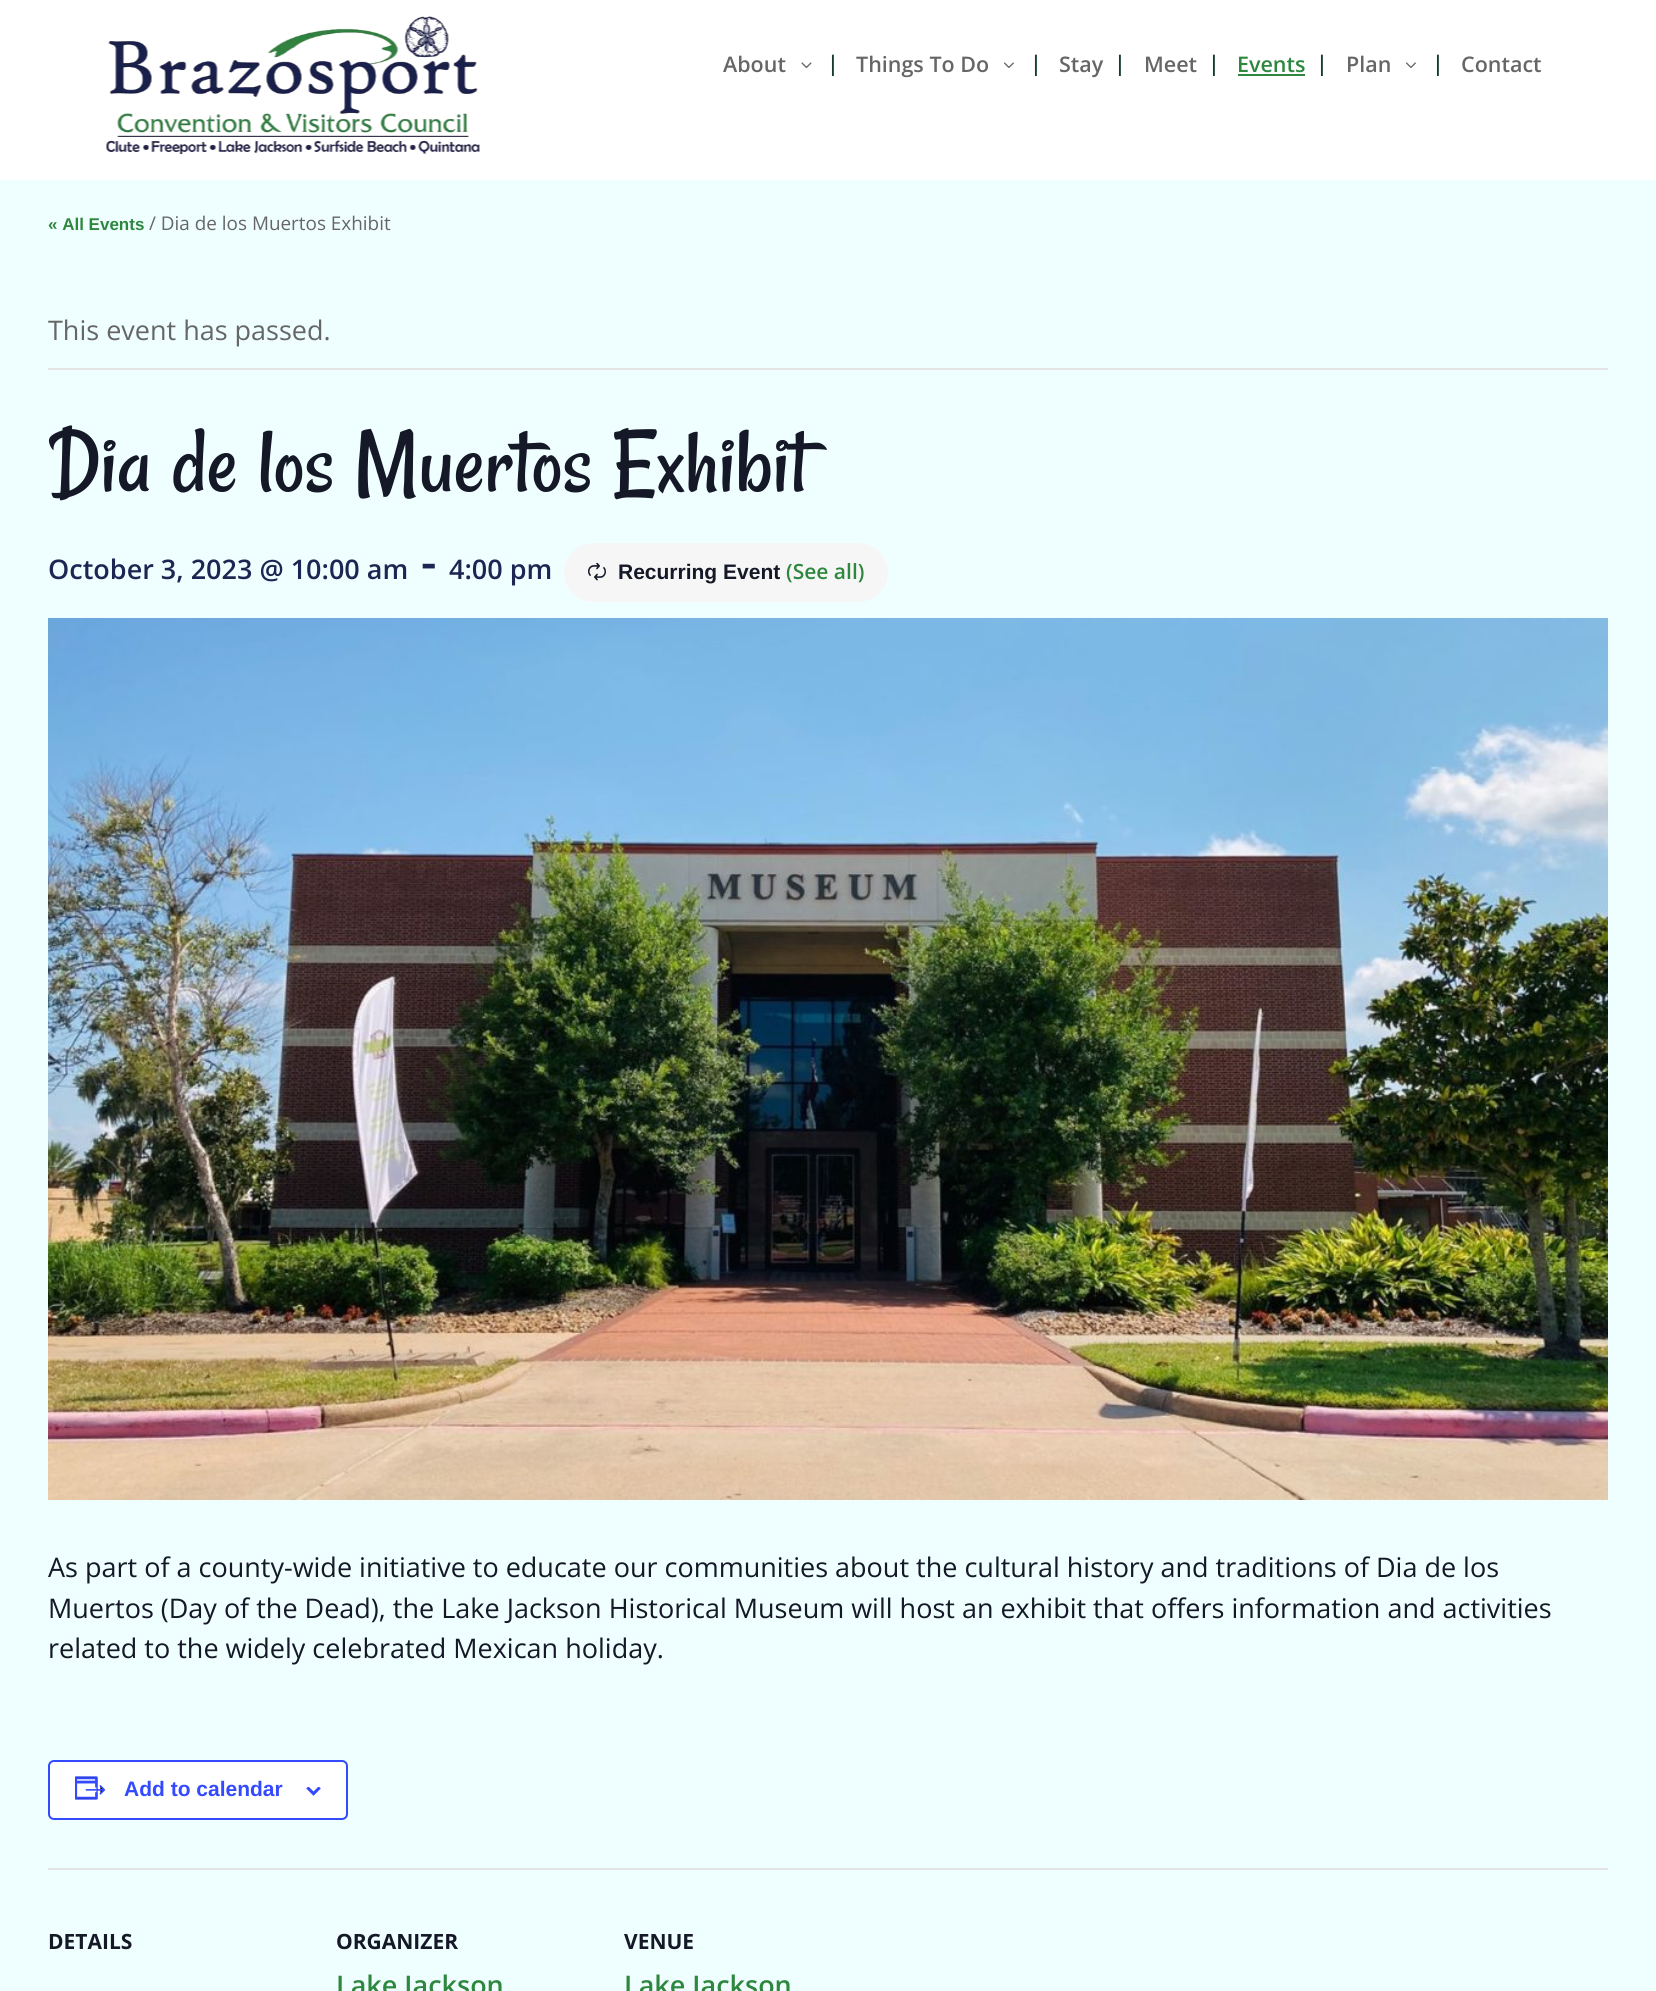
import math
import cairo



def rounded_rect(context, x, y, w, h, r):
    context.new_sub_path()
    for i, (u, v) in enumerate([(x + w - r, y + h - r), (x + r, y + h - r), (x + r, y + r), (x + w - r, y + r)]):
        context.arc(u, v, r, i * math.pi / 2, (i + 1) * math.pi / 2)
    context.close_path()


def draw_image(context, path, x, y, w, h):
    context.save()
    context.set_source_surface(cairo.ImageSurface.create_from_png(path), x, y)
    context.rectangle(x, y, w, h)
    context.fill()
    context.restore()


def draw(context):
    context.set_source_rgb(239 / 255, 1, 1)
    context.paint()
    context.set_source_rgb(1, 1, 1)
    context.rectangle(0, 0, 1656, 180)
    context.fill()
    draw_image(context, "images/1.png", 106, 16, 374, 139)
    draw_image(context, "images/2.png", 801, 62, 11, 7)
    draw_image(context, "images/3.png", 1004, 62, 10, 6)
    context.set_source_rgb(45 / 255, 135 / 255, 61 / 255)
    context.rectangle(1238, 74, 67, 2)
    context.fill()
    draw_image(context, "images/3.png", 1406, 62, 10, 6)
    context.set_source_rgb(228 / 255, 228 / 255, 228 / 255)
    context.rectangle(48, 368, 1560, 2)
    context.fill()
    context.set_source_rgb(247 / 255, 246 / 255, 246 / 255)
    rounded_rect(context, 564, 543, 324, 59, 29.5)
    context.fill()
    draw_image(context, "images/4.png", 588, 563, 18, 18)
    draw_image(context, "images/5.png", 48, 618, 1560, 882)
    context.set_source_rgb(1, 1, 1)
    rounded_rect(context, 49, 1761, 298, 58, 5)
    context.fill_preserve()
    context.set_source_rgb(51 / 255, 74 / 255, 1)
    context.stroke()
    draw_image(context, "images/6.png", 75, 1776, 31, 24)
    draw_image(context, "images/7.png", 306, 1787, 15, 9)
    context.set_source_rgb(228 / 255, 228 / 255, 228 / 255)
    context.rectangle(48, 1868, 1560, 2)
    context.fill()
    context.select_font_face("Open Sans SemiBold")
    context.set_font_size(21.5)
    context.set_source_rgb(102 / 255, 102 / 255, 102 / 255)
    context.move_to(723, 72)
    context.show_text("About")
    context.set_source_rgb(21 / 255, 63 / 255, 45 / 255)
    context.move_to(827, 71)
    context.show_text("|")
    context.set_source_rgb(102 / 255, 102 / 255, 102 / 255)
    context.move_to(856, 72)
    context.show_text("Things To Do")
    context.set_source_rgb(21 / 255, 63 / 255, 45 / 255)
    context.move_to(1030, 71)
    context.show_text("|")
    context.set_source_rgb(102 / 255, 102 / 255, 102 / 255)
    context.move_to(1059, 72)
    context.show_text("Stay")
    context.set_source_rgb(21 / 255, 63 / 255, 45 / 255)
    context.move_to(1114, 71)
    context.show_text("|")
    context.set_source_rgb(102 / 255, 102 / 255, 102 / 255)
    context.move_to(1144, 72)
    context.show_text("Meet")
    context.set_source_rgb(21 / 255, 63 / 255, 45 / 255)
    context.move_to(1208, 71)
    context.show_text("|")
    context.set_source_rgb(45 / 255, 135 / 255, 61 / 255)
    context.move_to(1237, 72)
    context.show_text("Events")
    context.set_source_rgb(21 / 255, 63 / 255, 45 / 255)
    context.move_to(1316, 71)
    context.show_text("|")
    context.set_source_rgb(102 / 255, 102 / 255, 102 / 255)
    context.move_to(1346, 72)
    context.show_text("Plan")
    context.set_source_rgb(21 / 255, 63 / 255, 45 / 255)
    context.move_to(1432, 71)
    context.show_text("|")
    context.set_source_rgb(102 / 255, 102 / 255, 102 / 255)
    context.move_to(1461, 72)
    context.show_text("Contact")
    context.select_font_face("Liberation Sans", cairo.FontSlant.NORMAL, cairo.FontWeight.BOLD)
    context.set_font_size(17)
    context.set_source_rgb(45 / 255, 135 / 255, 61 / 255)
    context.move_to(48, 230)
    context.show_text("« All Events")
    context.select_font_face("Open Sans")
    context.set_font_size(18.9)
    context.set_source_rgb(102 / 255, 102 / 255, 102 / 255)
    context.move_to(149, 230)
    context.show_text("/ Dia de los Muertos Exhibit")
    context.set_font_size(27)
    context.move_to(48, 340)
    context.show_text("This event has passed.")
    context.select_font_face("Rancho")
    context.set_font_size(94.5)
    context.set_source_rgb(20 / 255, 24 / 255, 39 / 255)
    context.move_to(48, 491)
    context.show_text("Dia de los Muertos Exhibit")
    context.select_font_face("Open Sans SemiBold")
    context.set_font_size(27)
    context.set_source_rgb(29 / 255, 37 / 255, 83 / 255)
    context.move_to(48, 579)
    context.show_text("October 3, 2023 @ 10:00 am")
    context.set_font_size(48)
    context.move_to(421, 579)
    context.show_text("-")
    context.set_font_size(27)
    context.move_to(449, 579)
    context.show_text("4:00 pm")
    context.select_font_face("Liberation Sans", cairo.FontSlant.NORMAL, cairo.FontWeight.BOLD)
    context.set_font_size(21)
    context.set_source_rgb(20 / 255, 24 / 255, 39 / 255)
    context.move_to(618, 579)
    context.show_text("Recurring Event")
    context.select_font_face("Open Sans SemiBold")
    context.set_source_rgb(45 / 255, 135 / 255, 61 / 255)
    context.move_to(786, 579)
    context.show_text("(See all)")
    context.select_font_face("Open Sans")
    context.set_font_size(27)
    context.set_source_rgb(20 / 255, 24 / 255, 39 / 255)
    context.move_to(48, 1577)
    context.show_text("As part of a county-wide initiative to educate our communities about the cultural history and traditions of Dia de los")
    context.move_to(48, 1618)
    context.show_text("Muertos (Day of the Dead), the Lake Jackson Historical Museum will host an exhibit that offers information and activities")
    context.move_to(48, 1658)
    context.show_text("related to the widely celebrated Mexican holiday.")
    context.select_font_face("Liberation Sans", cairo.FontSlant.NORMAL, cairo.FontWeight.BOLD)
    context.set_font_size(21)
    context.set_source_rgb(51 / 255, 74 / 255, 1)
    context.move_to(124, 1796)
    context.show_text("Add to calendar")
    context.select_font_face("Open Sans", cairo.FontSlant.NORMAL, cairo.FontWeight.BOLD)
    context.set_source_rgb(20 / 255, 24 / 255, 39 / 255)
    context.move_to(48, 1949)
    context.show_text("DETAILS")
    context.move_to(336, 1949)
    context.show_text("ORGANIZER")
    context.select_font_face("Open Sans SemiBold")
    context.set_font_size(27)
    context.set_source_rgb(45 / 255, 135 / 255, 61 / 255)
    context.move_to(336, 1995)
    context.show_text("Lake Jackson")
    context.select_font_face("Open Sans", cairo.FontSlant.NORMAL, cairo.FontWeight.BOLD)
    context.set_font_size(21)
    context.set_source_rgb(20 / 255, 24 / 255, 39 / 255)
    context.move_to(624, 1949)
    context.show_text("VENUE")
    context.select_font_face("Open Sans SemiBold")
    context.set_font_size(27)
    context.set_source_rgb(45 / 255, 135 / 255, 61 / 255)
    context.move_to(624, 1995)
    context.show_text("Lake Jackson")


surface = cairo.ImageSurface(cairo.Format.RGB24, 1656, 1991)
context = cairo.Context(surface)
options = cairo.FontOptions()
options.set_hint_metrics(cairo.HintMetrics.OFF)
options.set_hint_style(cairo.HintStyle.NONE)
context.set_font_options(options)
context.set_miter_limit(4)
draw(context)
surface.write_to_png("out.png")
